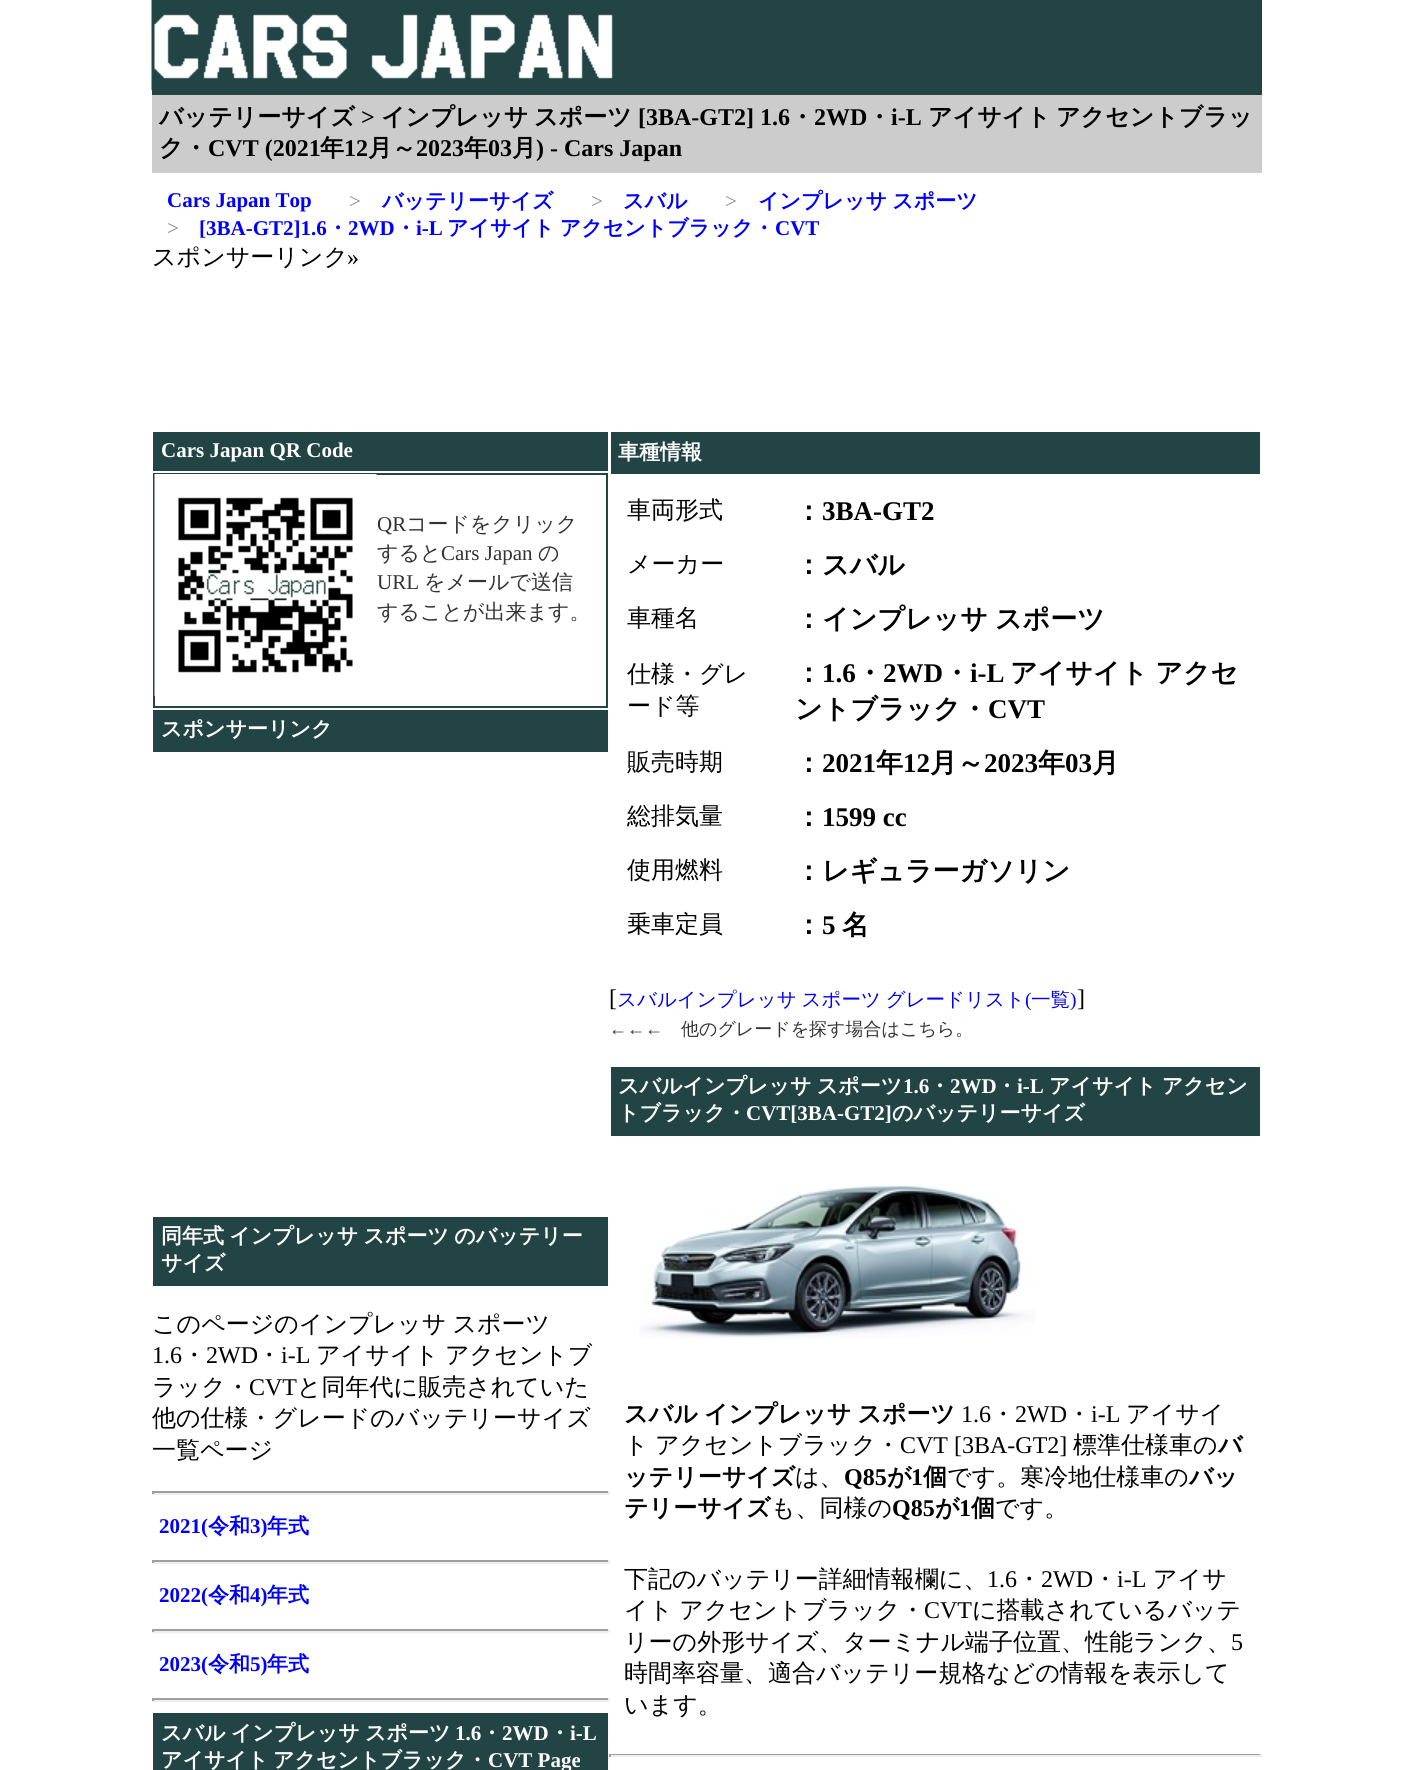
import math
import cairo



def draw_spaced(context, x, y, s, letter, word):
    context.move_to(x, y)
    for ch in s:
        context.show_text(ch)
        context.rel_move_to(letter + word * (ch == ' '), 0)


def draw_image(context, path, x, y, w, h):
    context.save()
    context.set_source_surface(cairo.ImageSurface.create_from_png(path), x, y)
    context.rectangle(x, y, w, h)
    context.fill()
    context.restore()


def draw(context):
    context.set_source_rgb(1, 1, 1)
    context.paint()
    context.set_source_rgb(34 / 255, 68 / 255, 68 / 255)
    context.rectangle(152, 0, 1110, 95)
    context.fill()
    draw_image(context, "images/1.png", 151, 0, 462, 90)
    context.set_source_rgb(204 / 255, 204 / 255, 204 / 255)
    context.rectangle(152, 95, 1110, 78)
    context.fill()
    context.set_source_rgb(34 / 255, 68 / 255, 68 / 255)
    context.rectangle(153, 432, 455, 39)
    context.fill()
    context.rectangle(154, 474, 453, 233)
    context.stroke()
    draw_image(context, "images/2.png", 154, 474, 223, 222)
    context.rectangle(153, 710, 455, 42)
    context.fill()
    context.rectangle(153, 1217, 455, 69)
    context.fill()
    context.set_source_rgb(159 / 255, 159 / 255, 159 / 255)
    context.rectangle(152, 1491, 457, 2)
    context.fill()
    context.set_source_rgb(238 / 255, 238 / 255, 238 / 255)
    context.rectangle(608, 1491, 2, 3)
    context.fill()
    context.rectangle(152, 1493, 457, 2)
    context.fill()
    context.set_source_rgb(159 / 255, 159 / 255, 159 / 255)
    context.rectangle(152, 1491, 2, 3)
    context.fill()
    context.rectangle(152, 1560, 457, 2)
    context.fill()
    context.set_source_rgb(238 / 255, 238 / 255, 238 / 255)
    context.rectangle(608, 1560, 2, 3)
    context.fill()
    context.rectangle(152, 1562, 457, 2)
    context.fill()
    context.set_source_rgb(159 / 255, 159 / 255, 159 / 255)
    context.rectangle(152, 1560, 2, 3)
    context.fill()
    context.rectangle(152, 1629, 457, 2)
    context.fill()
    context.set_source_rgb(238 / 255, 238 / 255, 238 / 255)
    context.rectangle(608, 1629, 2, 3)
    context.fill()
    context.rectangle(152, 1631, 457, 2)
    context.fill()
    context.set_source_rgb(159 / 255, 159 / 255, 159 / 255)
    context.rectangle(152, 1629, 2, 3)
    context.fill()
    context.rectangle(152, 1698, 457, 2)
    context.fill()
    context.set_source_rgb(238 / 255, 238 / 255, 238 / 255)
    context.rectangle(608, 1698, 2, 3)
    context.fill()
    context.rectangle(152, 1700, 457, 2)
    context.fill()
    context.set_source_rgb(159 / 255, 159 / 255, 159 / 255)
    context.rectangle(152, 1698, 2, 3)
    context.fill()
    context.set_source_rgb(34 / 255, 68 / 255, 68 / 255)
    context.rectangle(153, 1713, 455, 57)
    context.fill()
    context.rectangle(611, 432, 649, 42)
    context.fill()
    context.rectangle(611, 1067, 649, 69)
    context.fill()
    draw_image(context, "images/3.png", 639, 1185, 397, 154)
    context.set_source_rgb(159 / 255, 159 / 255, 159 / 255)
    context.rectangle(609, 1754, 653, 1)
    context.fill()
    context.set_source_rgb(238 / 255, 238 / 255, 238 / 255)
    context.rectangle(1260, 1754, 2, 3)
    context.fill()
    context.rectangle(609, 1755, 653, 2)
    context.fill()
    context.set_source_rgb(159 / 255, 159 / 255, 159 / 255)
    context.rectangle(609, 1754, 2, 3)
    context.fill()
    context.select_font_face("WenQuanYi Zen Hei", cairo.FontSlant.NORMAL, cairo.FontWeight.BOLD)
    context.set_font_size(24)
    context.set_source_rgb(0, 0, 0)
    context.move_to(159, 125)
    context.show_text("バッテリーサイズ")
    context.select_font_face("Liberation Serif", cairo.FontSlant.NORMAL, cairo.FontWeight.BOLD)
    context.move_to(361, 125)
    context.show_text(">")
    context.select_font_face("WenQuanYi Zen Hei", cairo.FontSlant.NORMAL, cairo.FontWeight.BOLD)
    context.move_to(381, 125)
    context.show_text("インプレッサ")
    context.move_to(534, 125)
    context.show_text("スポーツ")
    context.select_font_face("Liberation Serif", cairo.FontSlant.NORMAL, cairo.FontWeight.BOLD)
    context.move_to(638, 125)
    context.show_text("[3BA-GT2] 1.6")
    context.select_font_face("WenQuanYi Zen Hei", cairo.FontSlant.NORMAL, cairo.FontWeight.BOLD)
    context.move_to(790, 125)
    context.show_text("・")
    context.select_font_face("Liberation Serif", cairo.FontSlant.NORMAL, cairo.FontWeight.BOLD)
    context.move_to(814, 125)
    context.show_text("2WD")
    context.select_font_face("WenQuanYi Zen Hei", cairo.FontSlant.NORMAL, cairo.FontWeight.BOLD)
    context.move_to(867, 125)
    context.show_text("・")
    context.select_font_face("Liberation Serif", cairo.FontSlant.NORMAL, cairo.FontWeight.BOLD)
    context.move_to(891, 125)
    context.show_text("i-L")
    context.select_font_face("WenQuanYi Zen Hei", cairo.FontSlant.NORMAL, cairo.FontWeight.BOLD)
    context.move_to(928, 125)
    context.show_text("アイサイト")
    context.move_to(1056, 125)
    context.show_text("アクセントブラッ")
    context.move_to(159, 156)
    context.show_text("ク・")
    context.select_font_face("Liberation Serif", cairo.FontSlant.NORMAL, cairo.FontWeight.BOLD)
    context.move_to(208, 156)
    context.show_text("CVT (2021")
    context.select_font_face("WenQuanYi Zen Hei", cairo.FontSlant.NORMAL, cairo.FontWeight.BOLD)
    context.move_to(320, 156)
    context.show_text("年")
    context.select_font_face("Liberation Serif", cairo.FontSlant.NORMAL, cairo.FontWeight.BOLD)
    context.move_to(344, 156)
    context.show_text("12")
    context.select_font_face("WenQuanYi Zen Hei", cairo.FontSlant.NORMAL, cairo.FontWeight.BOLD)
    context.move_to(368, 156)
    context.show_text("月～")
    context.select_font_face("Liberation Serif", cairo.FontSlant.NORMAL, cairo.FontWeight.BOLD)
    context.move_to(416, 156)
    context.show_text("2023")
    context.select_font_face("WenQuanYi Zen Hei", cairo.FontSlant.NORMAL, cairo.FontWeight.BOLD)
    context.move_to(464, 156)
    context.show_text("年")
    context.select_font_face("Liberation Serif", cairo.FontSlant.NORMAL, cairo.FontWeight.BOLD)
    context.move_to(488, 156)
    context.show_text("03")
    context.select_font_face("WenQuanYi Zen Hei", cairo.FontSlant.NORMAL, cairo.FontWeight.BOLD)
    context.move_to(512, 156)
    context.show_text("月")
    context.select_font_face("Liberation Serif", cairo.FontSlant.NORMAL, cairo.FontWeight.BOLD)
    context.move_to(536, 156)
    context.show_text(") - Cars Japan")
    context.set_font_size(21)
    context.set_source_rgb(0, 0, 1)
    context.move_to(167, 207)
    context.show_text("Cars Japan Top")
    context.select_font_face("Liberation Serif")
    context.set_source_rgb(136 / 255, 136 / 255, 136 / 255)
    context.move_to(349, 208)
    context.show_text(">")
    context.select_font_face("WenQuanYi Zen Hei", cairo.FontSlant.NORMAL, cairo.FontWeight.BOLD)
    context.set_source_rgb(0, 0, 1)
    context.move_to(382, 208)
    context.show_text("バッテリーサイズ")
    context.select_font_face("Liberation Serif")
    context.set_source_rgb(136 / 255, 136 / 255, 136 / 255)
    context.move_to(591, 208)
    context.show_text(">")
    context.select_font_face("WenQuanYi Zen Hei", cairo.FontSlant.NORMAL, cairo.FontWeight.BOLD)
    context.set_source_rgb(0, 0, 1)
    context.move_to(623, 208)
    context.show_text("スバル")
    context.select_font_face("Liberation Serif")
    context.set_source_rgb(136 / 255, 136 / 255, 136 / 255)
    context.move_to(725, 208)
    context.show_text(">")
    context.select_font_face("WenQuanYi Zen Hei", cairo.FontSlant.NORMAL, cairo.FontWeight.BOLD)
    context.set_source_rgb(0, 0, 1)
    draw_spaced(context, 758, 208, "インプレッサ スポーツ", 0, -1)
    context.select_font_face("Liberation Serif")
    context.set_source_rgb(136 / 255, 136 / 255, 136 / 255)
    context.move_to(167, 235)
    context.show_text(">")
    context.select_font_face("Liberation Serif", cairo.FontSlant.NORMAL, cairo.FontWeight.BOLD)
    context.set_source_rgb(0, 0, 1)
    context.move_to(199, 235)
    context.show_text("[3BA-GT2]1.6")
    context.select_font_face("WenQuanYi Zen Hei", cairo.FontSlant.NORMAL, cairo.FontWeight.BOLD)
    context.move_to(327, 235)
    context.show_text("・")
    context.select_font_face("Liberation Serif", cairo.FontSlant.NORMAL, cairo.FontWeight.BOLD)
    context.move_to(348, 235)
    context.show_text("2WD")
    context.select_font_face("WenQuanYi Zen Hei", cairo.FontSlant.NORMAL, cairo.FontWeight.BOLD)
    context.move_to(395, 235)
    context.show_text("・")
    context.select_font_face("Liberation Serif", cairo.FontSlant.NORMAL, cairo.FontWeight.BOLD)
    context.move_to(416, 235)
    context.show_text("i-L")
    context.select_font_face("WenQuanYi Zen Hei", cairo.FontSlant.NORMAL, cairo.FontWeight.BOLD)
    draw_spaced(context, 447, 235, "アイサイト アクセントブラック・", 0, -1)
    context.select_font_face("Liberation Serif", cairo.FontSlant.NORMAL, cairo.FontWeight.BOLD)
    context.move_to(775, 235)
    context.show_text("CVT")
    context.select_font_face("WenQuanYi Zen Hei Medium")
    context.set_font_size(24)
    context.set_source_rgb(0, 0, 0)
    context.move_to(152, 265)
    context.show_text("スポンサーリンク")
    context.select_font_face("Liberation Serif")
    context.move_to(347, 265)
    context.show_text("»")
    context.select_font_face("Liberation Serif", cairo.FontSlant.NORMAL, cairo.FontWeight.BOLD)
    context.set_font_size(21)
    context.set_source_rgb(1, 1, 1)
    context.move_to(161, 457)
    context.show_text("Cars Japan QR Code")
    context.select_font_face("Liberation Serif")
    context.set_source_rgb(51 / 255, 51 / 255, 51 / 255)
    context.move_to(377, 531)
    context.show_text("QR")
    context.select_font_face("WenQuanYi Zen Hei Medium")
    context.move_to(406, 531)
    context.show_text("コードをクリック")
    context.move_to(377, 560)
    context.show_text("すると")
    context.select_font_face("Liberation Serif")
    context.move_to(441, 560)
    context.show_text("Cars Japan")
    context.select_font_face("WenQuanYi Zen Hei Medium")
    context.move_to(538, 560)
    context.show_text("の")
    context.select_font_face("Liberation Serif")
    context.move_to(377, 589)
    context.show_text("URL")
    context.select_font_face("WenQuanYi Zen Hei Medium")
    context.move_to(424, 589)
    context.show_text("をメールで送信")
    context.move_to(377, 619)
    context.show_text("することが出来ます。")
    context.select_font_face("WenQuanYi Zen Hei", cairo.FontSlant.NORMAL, cairo.FontWeight.BOLD)
    context.set_source_rgb(1, 1, 1)
    context.move_to(161, 736)
    context.show_text("スポンサーリンク")
    draw_spaced(context, 161, 1243, "同年式 インプレッサ スポーツ のバッテリー", 0, -1)
    context.move_to(161, 1270)
    context.show_text("サイズ")
    context.select_font_face("WenQuanYi Zen Hei Medium")
    context.set_font_size(24)
    context.set_source_rgb(0, 0, 0)
    draw_spaced(context, 152, 1332, "このページのインプレッサ スポーツ", 0, -1)
    context.select_font_face("Liberation Serif")
    context.move_to(152, 1363)
    context.show_text("1.6")
    context.select_font_face("WenQuanYi Zen Hei Medium")
    context.move_to(182, 1363)
    context.show_text("・")
    context.select_font_face("Liberation Serif")
    context.move_to(206, 1363)
    context.show_text("2WD")
    context.select_font_face("WenQuanYi Zen Hei Medium")
    context.move_to(257, 1363)
    context.show_text("・")
    context.select_font_face("Liberation Serif")
    context.move_to(281, 1363)
    context.show_text("i-L")
    context.select_font_face("WenQuanYi Zen Hei Medium")
    draw_spaced(context, 316, 1363, "アイサイト アクセントブ", 0, -1)
    context.move_to(152, 1395)
    context.show_text("ラック・")
    context.select_font_face("Liberation Serif")
    context.move_to(249, 1395)
    context.show_text("CVT")
    context.select_font_face("WenQuanYi Zen Hei Medium")
    context.move_to(297, 1395)
    context.show_text("と同年代に販売されていた")
    context.move_to(152, 1426)
    context.show_text("他の仕様・グレードのバッテリーサイズ")
    context.move_to(152, 1458)
    context.show_text("一覧ページ")
    context.select_font_face("Liberation Serif", cairo.FontSlant.NORMAL, cairo.FontWeight.BOLD)
    context.set_font_size(21)
    context.set_source_rgb(0, 0, 1)
    context.move_to(159, 1533)
    context.show_text("2021(")
    context.select_font_face("WenQuanYi Zen Hei", cairo.FontSlant.NORMAL, cairo.FontWeight.BOLD)
    context.move_to(208, 1533)
    context.show_text("令和")
    context.select_font_face("Liberation Serif", cairo.FontSlant.NORMAL, cairo.FontWeight.BOLD)
    context.move_to(250, 1533)
    context.show_text("3)")
    context.select_font_face("WenQuanYi Zen Hei", cairo.FontSlant.NORMAL, cairo.FontWeight.BOLD)
    context.move_to(267, 1533)
    context.show_text("年式")
    context.select_font_face("Liberation Serif", cairo.FontSlant.NORMAL, cairo.FontWeight.BOLD)
    context.move_to(159, 1602)
    context.show_text("2022(")
    context.select_font_face("WenQuanYi Zen Hei", cairo.FontSlant.NORMAL, cairo.FontWeight.BOLD)
    context.move_to(208, 1602)
    context.show_text("令和")
    context.select_font_face("Liberation Serif", cairo.FontSlant.NORMAL, cairo.FontWeight.BOLD)
    context.move_to(250, 1602)
    context.show_text("4)")
    context.select_font_face("WenQuanYi Zen Hei", cairo.FontSlant.NORMAL, cairo.FontWeight.BOLD)
    context.move_to(267, 1602)
    context.show_text("年式")
    context.select_font_face("Liberation Serif", cairo.FontSlant.NORMAL, cairo.FontWeight.BOLD)
    context.move_to(159, 1671)
    context.show_text("2023(")
    context.select_font_face("WenQuanYi Zen Hei", cairo.FontSlant.NORMAL, cairo.FontWeight.BOLD)
    context.move_to(208, 1671)
    context.show_text("令和")
    context.select_font_face("Liberation Serif", cairo.FontSlant.NORMAL, cairo.FontWeight.BOLD)
    context.move_to(250, 1671)
    context.show_text("5)")
    context.select_font_face("WenQuanYi Zen Hei", cairo.FontSlant.NORMAL, cairo.FontWeight.BOLD)
    context.move_to(267, 1671)
    context.show_text("年式")
    context.set_source_rgb(1, 1, 1)
    draw_spaced(context, 161, 1740, "スバル インプレッサ スポーツ", 0, -1)
    context.select_font_face("Liberation Serif", cairo.FontSlant.NORMAL, cairo.FontWeight.BOLD)
    context.move_to(455, 1740)
    context.show_text("1.6")
    context.select_font_face("WenQuanYi Zen Hei", cairo.FontSlant.NORMAL, cairo.FontWeight.BOLD)
    context.move_to(481, 1740)
    context.show_text("・")
    context.select_font_face("Liberation Serif", cairo.FontSlant.NORMAL, cairo.FontWeight.BOLD)
    context.move_to(502, 1740)
    context.show_text("2WD")
    context.select_font_face("WenQuanYi Zen Hei", cairo.FontSlant.NORMAL, cairo.FontWeight.BOLD)
    context.move_to(549, 1740)
    context.show_text("・")
    context.select_font_face("Liberation Serif", cairo.FontSlant.NORMAL, cairo.FontWeight.BOLD)
    context.move_to(570, 1740)
    context.show_text("i-L")
    context.select_font_face("WenQuanYi Zen Hei", cairo.FontSlant.NORMAL, cairo.FontWeight.BOLD)
    context.move_to(161, 1767)
    context.show_text("アイサイト")
    context.move_to(273, 1767)
    context.show_text("アクセントブラック・")
    context.select_font_face("Liberation Serif", cairo.FontSlant.NORMAL, cairo.FontWeight.BOLD)
    context.move_to(488, 1767)
    context.show_text("CVT Page")
    context.select_font_face("WenQuanYi Zen Hei", cairo.FontSlant.NORMAL, cairo.FontWeight.BOLD)
    context.move_to(618, 459)
    context.show_text("車種情報")
    context.select_font_face("WenQuanYi Zen Hei Medium")
    context.set_font_size(24)
    context.set_source_rgb(0, 0, 0)
    context.move_to(627, 518)
    context.show_text("車両形式")
    context.select_font_face("WenQuanYi Zen Hei", cairo.FontSlant.NORMAL, cairo.FontWeight.BOLD)
    context.set_font_size(27)
    context.move_to(795, 520)
    context.show_text("：")
    context.select_font_face("Liberation Serif", cairo.FontSlant.NORMAL, cairo.FontWeight.BOLD)
    context.move_to(822, 520)
    context.show_text("3BA-GT2")
    context.select_font_face("WenQuanYi Zen Hei Medium")
    context.set_font_size(24)
    context.move_to(627, 572)
    context.show_text("メーカー")
    context.select_font_face("WenQuanYi Zen Hei", cairo.FontSlant.NORMAL, cairo.FontWeight.BOLD)
    context.set_font_size(27)
    context.move_to(795, 574)
    context.show_text("：スバル")
    context.select_font_face("WenQuanYi Zen Hei Medium")
    context.set_font_size(24)
    context.move_to(627, 626)
    context.show_text("車種名")
    context.select_font_face("WenQuanYi Zen Hei", cairo.FontSlant.NORMAL, cairo.FontWeight.BOLD)
    context.set_font_size(27)
    draw_spaced(context, 795, 628, "：インプレッサ スポーツ", 0, -1)
    context.select_font_face("WenQuanYi Zen Hei Medium")
    context.set_font_size(24)
    context.move_to(627, 682)
    context.show_text("仕様・グレ")
    context.move_to(627, 714)
    context.show_text("ード等")
    context.select_font_face("WenQuanYi Zen Hei", cairo.FontSlant.NORMAL, cairo.FontWeight.BOLD)
    context.set_font_size(27)
    context.move_to(795, 682)
    context.show_text("：")
    context.select_font_face("Liberation Serif", cairo.FontSlant.NORMAL, cairo.FontWeight.BOLD)
    context.move_to(822, 682)
    context.show_text("1.6")
    context.select_font_face("WenQuanYi Zen Hei", cairo.FontSlant.NORMAL, cairo.FontWeight.BOLD)
    context.move_to(856, 682)
    context.show_text("・")
    context.select_font_face("Liberation Serif", cairo.FontSlant.NORMAL, cairo.FontWeight.BOLD)
    context.move_to(883, 682)
    context.show_text("2WD")
    context.select_font_face("WenQuanYi Zen Hei", cairo.FontSlant.NORMAL, cairo.FontWeight.BOLD)
    context.move_to(943, 682)
    context.show_text("・")
    context.select_font_face("Liberation Serif", cairo.FontSlant.NORMAL, cairo.FontWeight.BOLD)
    context.move_to(970, 682)
    context.show_text("i-L")
    context.select_font_face("WenQuanYi Zen Hei", cairo.FontSlant.NORMAL, cairo.FontWeight.BOLD)
    draw_spaced(context, 1010, 682, "アイサイト アクセ", 0, -1)
    context.move_to(795, 718)
    context.show_text("ントブラック・")
    context.select_font_face("Liberation Serif", cairo.FontSlant.NORMAL, cairo.FontWeight.BOLD)
    context.move_to(988, 718)
    context.show_text("CVT")
    context.select_font_face("WenQuanYi Zen Hei Medium")
    context.set_font_size(24)
    context.move_to(627, 770)
    context.show_text("販売時期")
    context.select_font_face("WenQuanYi Zen Hei", cairo.FontSlant.NORMAL, cairo.FontWeight.BOLD)
    context.set_font_size(27)
    context.move_to(795, 772)
    context.show_text("：")
    context.select_font_face("Liberation Serif", cairo.FontSlant.NORMAL, cairo.FontWeight.BOLD)
    context.move_to(822, 772)
    context.show_text("2021")
    context.select_font_face("WenQuanYi Zen Hei", cairo.FontSlant.NORMAL, cairo.FontWeight.BOLD)
    context.move_to(876, 772)
    context.show_text("年")
    context.select_font_face("Liberation Serif", cairo.FontSlant.NORMAL, cairo.FontWeight.BOLD)
    context.move_to(903, 772)
    context.show_text("12")
    context.select_font_face("WenQuanYi Zen Hei", cairo.FontSlant.NORMAL, cairo.FontWeight.BOLD)
    context.move_to(930, 772)
    context.show_text("月～")
    context.select_font_face("Liberation Serif", cairo.FontSlant.NORMAL, cairo.FontWeight.BOLD)
    context.move_to(984, 772)
    context.show_text("2023")
    context.select_font_face("WenQuanYi Zen Hei", cairo.FontSlant.NORMAL, cairo.FontWeight.BOLD)
    context.move_to(1038, 772)
    context.show_text("年")
    context.select_font_face("Liberation Serif", cairo.FontSlant.NORMAL, cairo.FontWeight.BOLD)
    context.move_to(1065, 772)
    context.show_text("03")
    context.select_font_face("WenQuanYi Zen Hei", cairo.FontSlant.NORMAL, cairo.FontWeight.BOLD)
    context.move_to(1092, 772)
    context.show_text("月")
    context.select_font_face("WenQuanYi Zen Hei Medium")
    context.set_font_size(24)
    context.move_to(627, 824)
    context.show_text("総排気量")
    context.select_font_face("WenQuanYi Zen Hei", cairo.FontSlant.NORMAL, cairo.FontWeight.BOLD)
    context.set_font_size(27)
    context.move_to(795, 826)
    context.show_text("：")
    context.select_font_face("Liberation Serif", cairo.FontSlant.NORMAL, cairo.FontWeight.BOLD)
    context.move_to(822, 826)
    context.show_text("1599 cc")
    context.select_font_face("WenQuanYi Zen Hei Medium")
    context.set_font_size(24)
    context.move_to(627, 878)
    context.show_text("使用燃料")
    context.select_font_face("WenQuanYi Zen Hei", cairo.FontSlant.NORMAL, cairo.FontWeight.BOLD)
    context.set_font_size(27)
    context.move_to(795, 880)
    context.show_text("：レギュラーガソリン")
    context.select_font_face("WenQuanYi Zen Hei Medium")
    context.set_font_size(24)
    context.move_to(627, 932)
    context.show_text("乗車定員")
    context.select_font_face("WenQuanYi Zen Hei", cairo.FontSlant.NORMAL, cairo.FontWeight.BOLD)
    context.set_font_size(27)
    context.move_to(795, 934)
    context.show_text("：")
    context.select_font_face("Liberation Serif", cairo.FontSlant.NORMAL, cairo.FontWeight.BOLD)
    context.move_to(822, 934)
    context.show_text("5")
    context.select_font_face("WenQuanYi Zen Hei", cairo.FontSlant.NORMAL, cairo.FontWeight.BOLD)
    context.move_to(842, 934)
    context.show_text("名")
    context.select_font_face("Liberation Serif")
    context.set_font_size(24)
    context.move_to(609, 1006)
    context.show_text("[")
    context.select_font_face("WenQuanYi Zen Hei Medium")
    context.set_font_size(19.5)
    context.set_source_rgb(0, 0, 238 / 255)
    draw_spaced(context, 617, 1006, "スバルインプレッサ スポーツ グレードリスト", 0, -1)
    context.select_font_face("Liberation Serif")
    context.move_to(1025, 1006)
    context.show_text("(")
    context.select_font_face("WenQuanYi Zen Hei Medium")
    context.move_to(1031, 1006)
    context.show_text("一覧")
    context.select_font_face("Liberation Serif")
    context.move_to(1070, 1006)
    context.show_text(")")
    context.set_font_size(24)
    context.set_source_rgb(0, 0, 0)
    context.move_to(1077, 1006)
    context.show_text("]")
    context.set_font_size(18)
    context.set_source_rgb(51 / 255, 51 / 255, 51 / 255)
    context.move_to(609, 1035)
    context.show_text("←←←")
    context.select_font_face("WenQuanYi Zen Hei Medium")
    context.move_to(681, 1035)
    context.show_text("他のグレードを探す場合はこちら。")
    context.select_font_face("WenQuanYi Zen Hei", cairo.FontSlant.NORMAL, cairo.FontWeight.BOLD)
    context.set_font_size(21)
    context.set_source_rgb(1, 1, 1)
    draw_spaced(context, 618, 1093, "スバルインプレッサ スポーツ", 0, -1)
    context.select_font_face("Liberation Serif", cairo.FontSlant.NORMAL, cairo.FontWeight.BOLD)
    context.move_to(903, 1093)
    context.show_text("1.6")
    context.select_font_face("WenQuanYi Zen Hei", cairo.FontSlant.NORMAL, cairo.FontWeight.BOLD)
    context.move_to(929, 1093)
    context.show_text("・")
    context.select_font_face("Liberation Serif", cairo.FontSlant.NORMAL, cairo.FontWeight.BOLD)
    context.move_to(950, 1093)
    context.show_text("2WD")
    context.select_font_face("WenQuanYi Zen Hei", cairo.FontSlant.NORMAL, cairo.FontWeight.BOLD)
    context.move_to(996, 1093)
    context.show_text("・")
    context.select_font_face("Liberation Serif", cairo.FontSlant.NORMAL, cairo.FontWeight.BOLD)
    context.move_to(1017, 1093)
    context.show_text("i-L")
    context.select_font_face("WenQuanYi Zen Hei", cairo.FontSlant.NORMAL, cairo.FontWeight.BOLD)
    draw_spaced(context, 1049, 1093, "アイサイト アクセン", 0, -1)
    context.move_to(618, 1120)
    context.show_text("トブラック・")
    context.select_font_face("Liberation Serif", cairo.FontSlant.NORMAL, cairo.FontWeight.BOLD)
    context.move_to(746, 1120)
    context.show_text("CVT[3BA-GT2]")
    context.select_font_face("WenQuanYi Zen Hei", cairo.FontSlant.NORMAL, cairo.FontWeight.BOLD)
    context.move_to(892, 1120)
    context.show_text("のバッテリーサイズ")
    context.set_font_size(24)
    context.set_source_rgb(0, 0, 0)
    draw_spaced(context, 624, 1422, "スバル インプレッサ スポーツ", 0, -1)
    context.select_font_face("Liberation Serif")
    context.move_to(961, 1422)
    context.show_text("1.6")
    context.select_font_face("WenQuanYi Zen Hei Medium")
    context.move_to(991, 1422)
    context.show_text("・")
    context.select_font_face("Liberation Serif")
    context.move_to(1015, 1422)
    context.show_text("2WD")
    context.select_font_face("WenQuanYi Zen Hei Medium")
    context.move_to(1067, 1422)
    context.show_text("・")
    context.select_font_face("Liberation Serif")
    context.move_to(1091, 1422)
    context.show_text("i-L")
    context.select_font_face("WenQuanYi Zen Hei Medium")
    context.move_to(1126, 1422)
    context.show_text("アイサイ")
    context.move_to(624, 1453)
    context.show_text("ト")
    context.move_to(655, 1453)
    context.show_text("アクセントブラック・")
    context.select_font_face("Liberation Serif")
    context.move_to(900, 1453)
    context.show_text("CVT [3BA-GT2]")
    context.select_font_face("WenQuanYi Zen Hei Medium")
    context.move_to(1073, 1453)
    context.show_text("標準仕様車の")
    context.select_font_face("WenQuanYi Zen Hei", cairo.FontSlant.NORMAL, cairo.FontWeight.BOLD)
    context.move_to(1218, 1453)
    context.show_text("バ")
    context.move_to(624, 1485)
    context.show_text("ッテリーサイズ")
    context.select_font_face("WenQuanYi Zen Hei Medium")
    context.move_to(795, 1485)
    context.show_text("は、")
    context.select_font_face("Liberation Serif", cairo.FontSlant.NORMAL, cairo.FontWeight.BOLD)
    context.move_to(844, 1485)
    context.show_text("Q85")
    context.select_font_face("WenQuanYi Zen Hei", cairo.FontSlant.NORMAL, cairo.FontWeight.BOLD)
    context.move_to(887, 1485)
    context.show_text("が")
    context.select_font_face("Liberation Serif", cairo.FontSlant.NORMAL, cairo.FontWeight.BOLD)
    context.move_to(911, 1485)
    context.show_text("1")
    context.select_font_face("WenQuanYi Zen Hei", cairo.FontSlant.NORMAL, cairo.FontWeight.BOLD)
    context.move_to(923, 1485)
    context.show_text("個")
    context.select_font_face("WenQuanYi Zen Hei Medium")
    context.move_to(947, 1485)
    context.show_text("です。寒冷地仕様車の")
    context.select_font_face("WenQuanYi Zen Hei", cairo.FontSlant.NORMAL, cairo.FontWeight.BOLD)
    context.move_to(1189, 1485)
    context.show_text("バッ")
    context.move_to(624, 1516)
    context.show_text("テリーサイズ")
    context.select_font_face("WenQuanYi Zen Hei Medium")
    context.move_to(771, 1516)
    context.show_text("も、同様の")
    context.select_font_face("Liberation Serif", cairo.FontSlant.NORMAL, cairo.FontWeight.BOLD)
    context.move_to(892, 1516)
    context.show_text("Q85")
    context.select_font_face("WenQuanYi Zen Hei", cairo.FontSlant.NORMAL, cairo.FontWeight.BOLD)
    context.move_to(935, 1516)
    context.show_text("が")
    context.select_font_face("Liberation Serif", cairo.FontSlant.NORMAL, cairo.FontWeight.BOLD)
    context.move_to(959, 1516)
    context.show_text("1")
    context.select_font_face("WenQuanYi Zen Hei", cairo.FontSlant.NORMAL, cairo.FontWeight.BOLD)
    context.move_to(971, 1516)
    context.show_text("個")
    context.select_font_face("WenQuanYi Zen Hei Medium")
    context.move_to(995, 1516)
    context.show_text("です。")
    context.move_to(624, 1587)
    context.show_text("下記のバッテリー詳細情報欄に、")
    context.select_font_face("Liberation Serif")
    context.move_to(987, 1587)
    context.show_text("1.6")
    context.select_font_face("WenQuanYi Zen Hei Medium")
    context.move_to(1017, 1587)
    context.show_text("・")
    context.select_font_face("Liberation Serif")
    context.move_to(1041, 1587)
    context.show_text("2WD")
    context.select_font_face("WenQuanYi Zen Hei Medium")
    context.move_to(1093, 1587)
    context.show_text("・")
    context.select_font_face("Liberation Serif")
    context.move_to(1117, 1587)
    context.show_text("i-L")
    context.select_font_face("WenQuanYi Zen Hei Medium")
    context.move_to(1153, 1587)
    context.show_text("アイサ")
    draw_spaced(context, 624, 1618, "イト アクセントブラック・", 0, -1)
    context.select_font_face("Liberation Serif")
    context.move_to(924, 1618)
    context.show_text("CVT")
    context.select_font_face("WenQuanYi Zen Hei Medium")
    context.move_to(972, 1618)
    context.show_text("に搭載されているバッテ")
    context.move_to(624, 1650)
    context.show_text("リーの外形サイズ、ターミナル端子位置、性能ランク、")
    context.select_font_face("Liberation Serif")
    context.move_to(1231, 1650)
    context.show_text("5")
    context.select_font_face("WenQuanYi Zen Hei Medium")
    context.move_to(624, 1681)
    context.show_text("時間率容量、適合バッテリー規格などの情報を表示して")
    context.move_to(624, 1713)
    context.show_text("います。")


surface = cairo.ImageSurface(cairo.Format.RGB24, 1412, 1770)
context = cairo.Context(surface)
options = cairo.FontOptions()
options.set_hint_metrics(cairo.HintMetrics.OFF)
options.set_hint_style(cairo.HintStyle.NONE)
context.set_font_options(options)
context.set_miter_limit(4)
draw(context)
surface.write_to_png("out.png")
